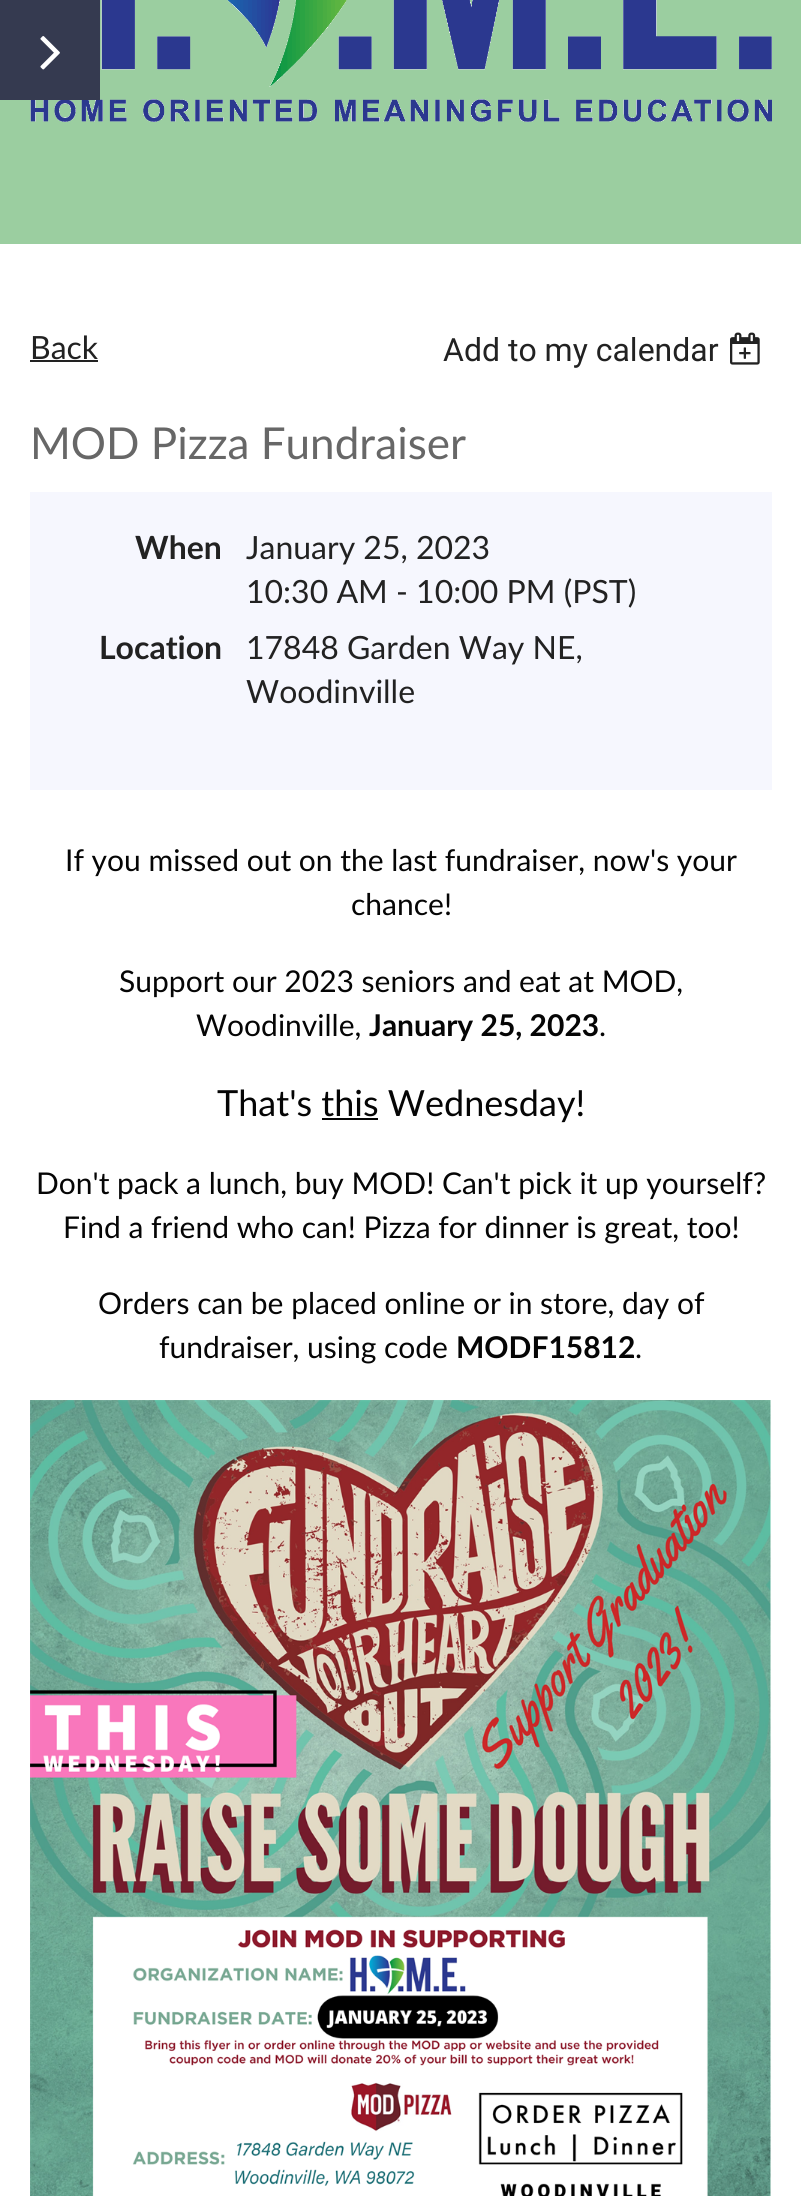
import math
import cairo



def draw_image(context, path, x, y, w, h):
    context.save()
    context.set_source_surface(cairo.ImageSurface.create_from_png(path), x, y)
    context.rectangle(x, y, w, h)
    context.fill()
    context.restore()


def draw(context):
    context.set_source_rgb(1, 1, 1)
    context.paint()
    context.set_source_rgb(155 / 255, 206 / 255, 160 / 255)
    context.rectangle(0, 0, 801, 244)
    context.fill()
    draw_image(context, "images/2.png", 30, 0, 742, 122)
    context.set_source_rgb(53 / 255, 58 / 255, 80 / 255)
    context.rectangle(0, 0, 100, 100)
    context.fill()
    draw_image(context, "images/1.png", 40, 36, 20, 34)
    context.set_source_rgb(34 / 255, 34 / 255, 34 / 255)
    context.rectangle(30, 360, 68, 2)
    context.fill()
    draw_image(context, "images/3.png", 730, 332, 30, 33)
    context.set_source_rgb(246 / 255, 247 / 255, 254 / 255)
    context.rectangle(30, 492, 742, 298)
    context.fill()
    context.set_source_rgb(5 / 255, 5 / 255, 5 / 255)
    context.rectangle(322, 1118, 56, 2)
    context.fill()
    draw_image(context, "images/4.png", 30, 1400, 741, 796)
    context.select_font_face("Lato")
    context.set_font_size(32)
    context.set_source_rgb(34 / 255, 34 / 255, 34 / 255)
    context.move_to(30, 359)
    context.show_text("Back")
    context.select_font_face("Roboto")
    context.move_to(443, 361)
    context.show_text("Add to my calendar")
    context.select_font_face("Lato")
    context.set_font_size(44)
    context.set_source_rgb(103 / 255, 103 / 255, 103 / 255)
    context.move_to(30, 459)
    context.show_text("MOD Pizza Fundraiser")
    context.select_font_face("Lato", cairo.FontSlant.NORMAL, cairo.FontWeight.BOLD)
    context.set_font_size(32)
    context.set_source_rgb(34 / 255, 34 / 255, 34 / 255)
    context.move_to(135, 559)
    context.show_text("When")
    context.select_font_face("Lato")
    context.move_to(246, 559)
    context.show_text("January 25, 2023")
    context.move_to(246, 603)
    context.show_text("10:30 AM - 10:00 PM (PST)")
    context.select_font_face("Lato", cairo.FontSlant.NORMAL, cairo.FontWeight.BOLD)
    context.move_to(99, 659)
    context.show_text("Location")
    context.select_font_face("Lato")
    context.move_to(246, 659)
    context.show_text("17848 Garden Way NE,")
    context.move_to(246, 703)
    context.show_text("Woodinville")
    context.set_font_size(30)
    context.set_source_rgb(5 / 255, 5 / 255, 5 / 255)
    context.move_to(65, 871)
    context.show_text("If you missed out on the last fundraiser, now's your")
    context.move_to(351, 915)
    context.show_text("chance!")
    context.move_to(119, 992)
    context.show_text("Support our 2023 seniors and eat at MOD,")
    context.move_to(196, 1036)
    context.show_text("Woodinville,")
    context.select_font_face("Lato", cairo.FontSlant.NORMAL, cairo.FontWeight.BOLD)
    context.move_to(369, 1036)
    context.show_text("January 25, 2023")
    context.select_font_face("Lato")
    context.move_to(599, 1036)
    context.show_text(".")
    context.set_font_size(36)
    context.move_to(217, 1116)
    context.show_text("That's this Wednesday!")
    context.set_font_size(30)
    context.move_to(36, 1194)
    context.show_text("Don't pack a lunch, buy MOD! Can't pick it up yourself?")
    context.move_to(63, 1238)
    context.show_text("Find a friend who can! Pizza for dinner is great, too!")
    context.move_to(98, 1314)
    context.show_text("Orders can be placed online or in store, day of")
    context.move_to(159, 1358)
    context.show_text("fundraiser, using code")
    context.select_font_face("Lato", cairo.FontSlant.NORMAL, cairo.FontWeight.BOLD)
    context.move_to(456, 1358)
    context.show_text("MODF15812")
    context.select_font_face("Lato")
    context.move_to(635, 1358)
    context.show_text(".")


surface = cairo.ImageSurface(cairo.Format.RGB24, 801, 2196)
context = cairo.Context(surface)
options = cairo.FontOptions()
options.set_hint_metrics(cairo.HintMetrics.OFF)
options.set_hint_style(cairo.HintStyle.NONE)
context.set_font_options(options)
context.set_miter_limit(4)
draw(context)
surface.write_to_png("out.png")
